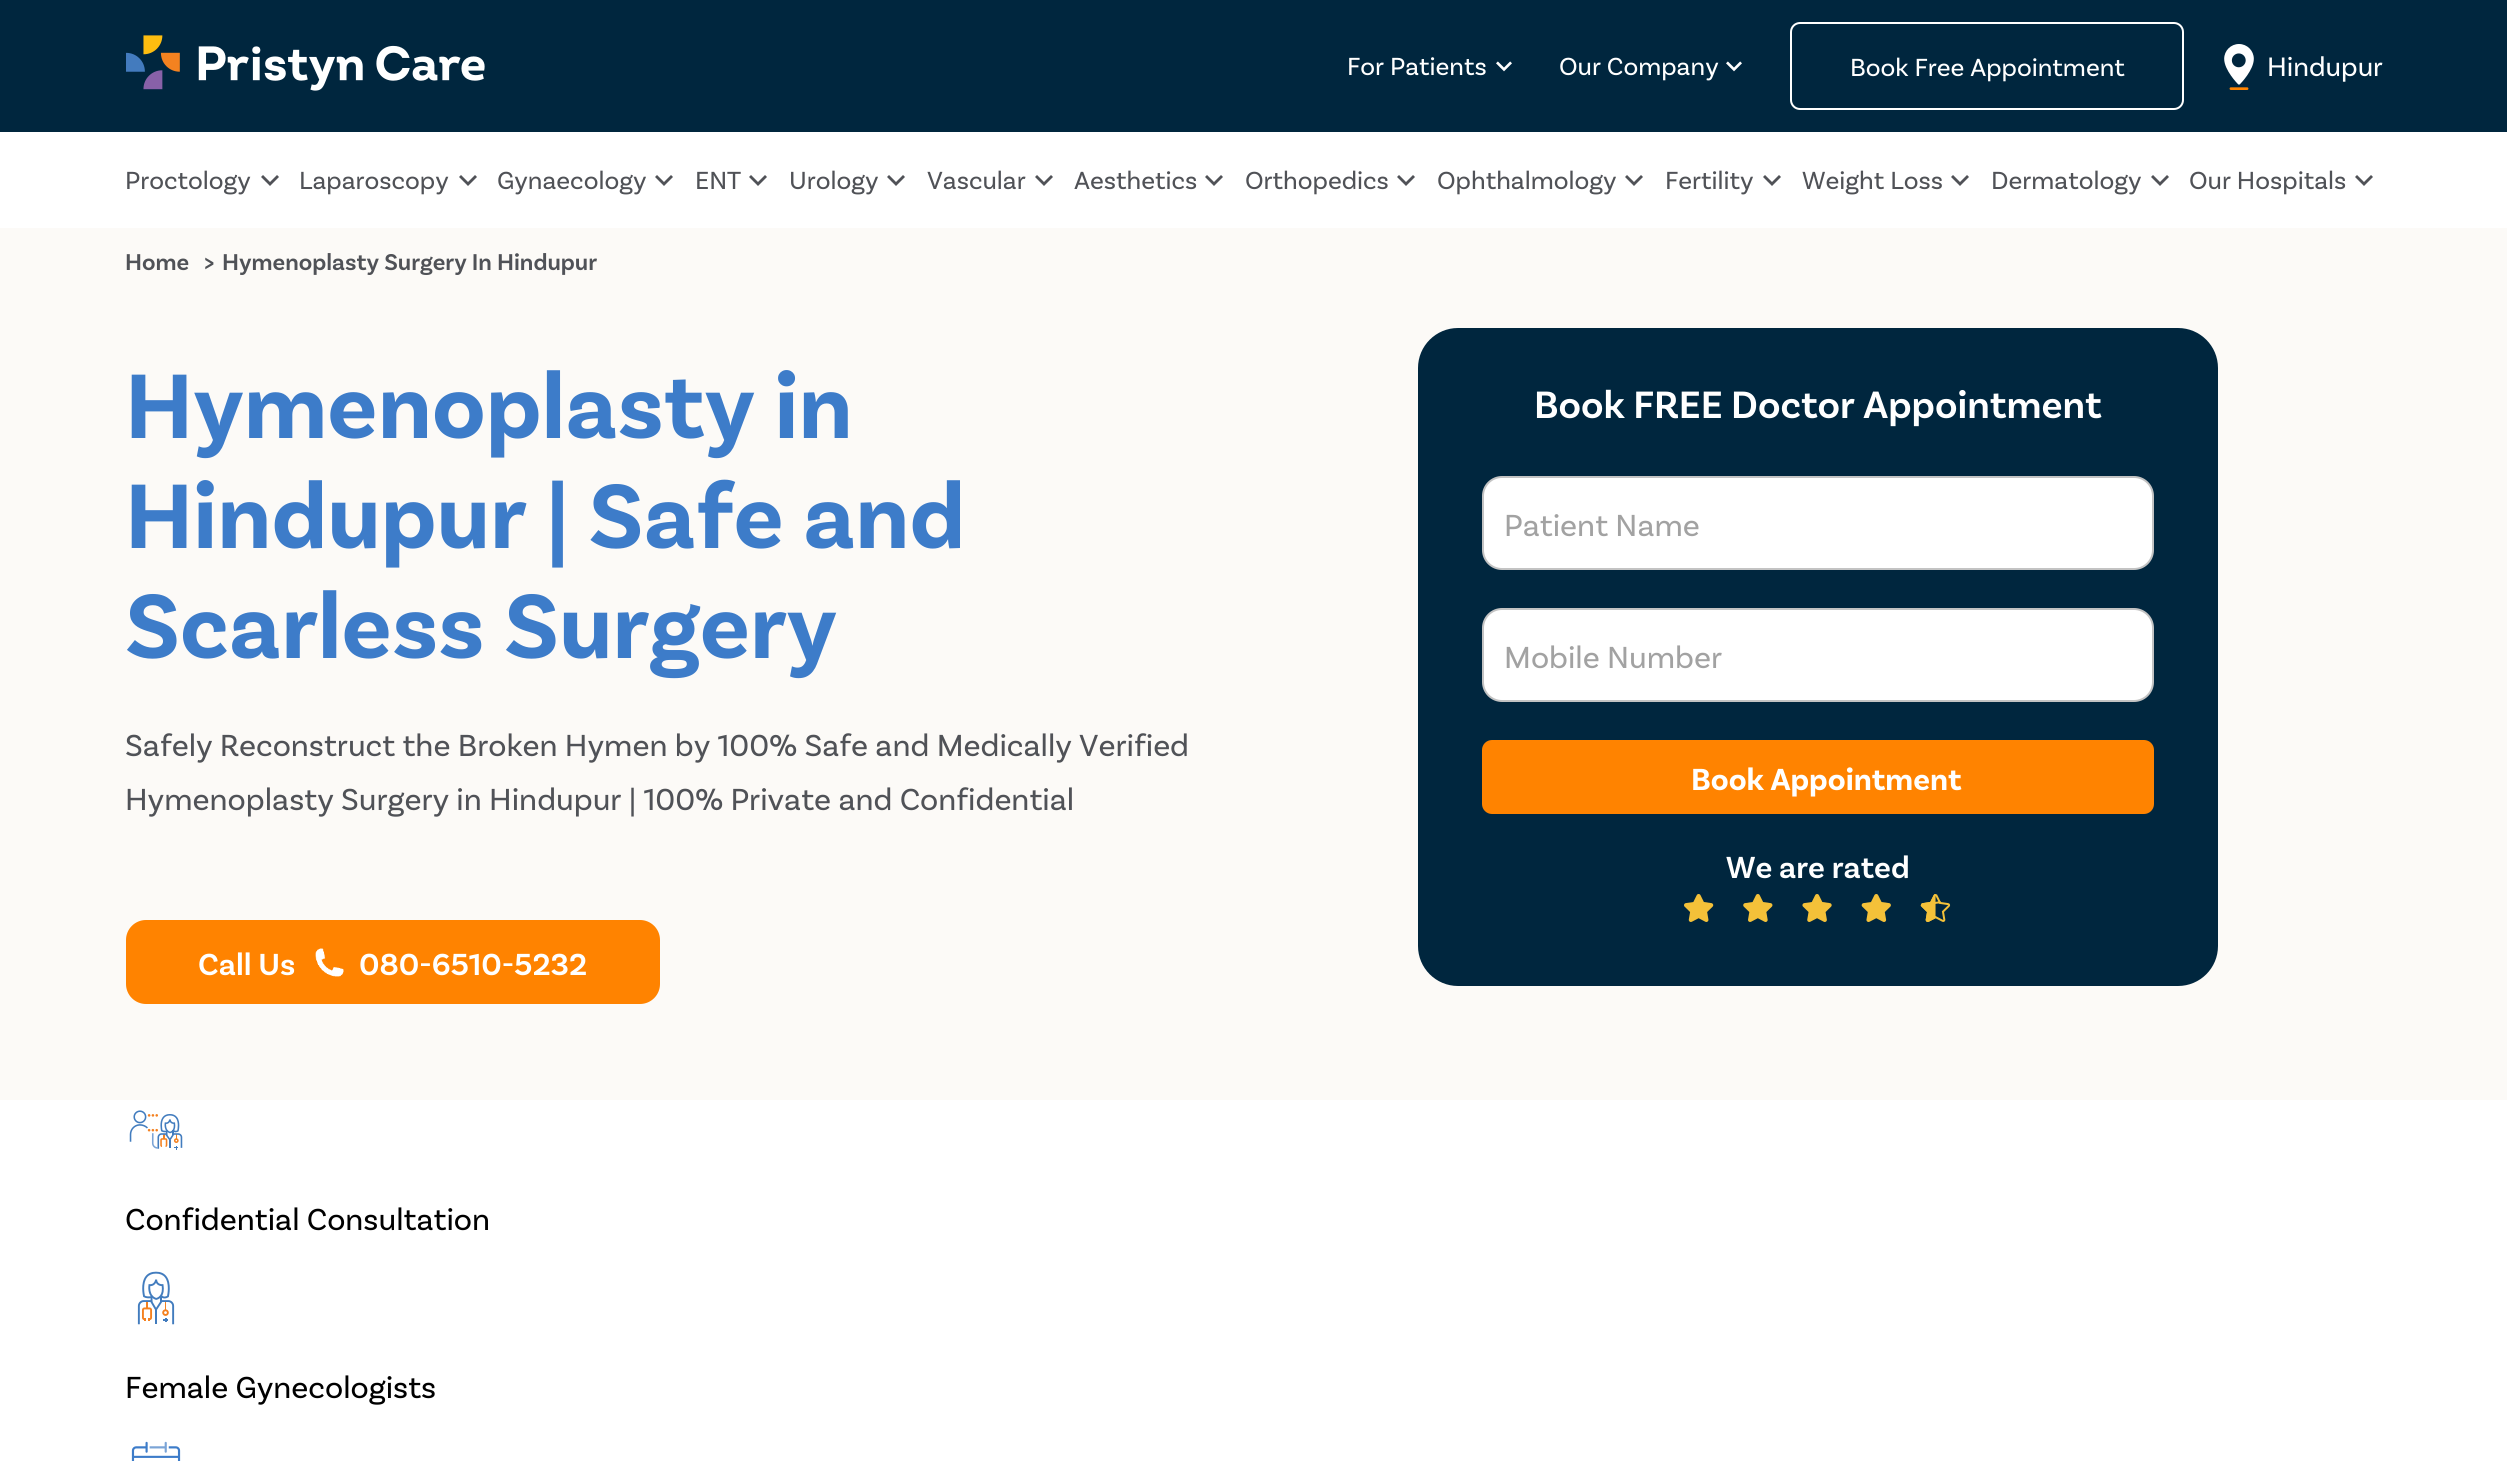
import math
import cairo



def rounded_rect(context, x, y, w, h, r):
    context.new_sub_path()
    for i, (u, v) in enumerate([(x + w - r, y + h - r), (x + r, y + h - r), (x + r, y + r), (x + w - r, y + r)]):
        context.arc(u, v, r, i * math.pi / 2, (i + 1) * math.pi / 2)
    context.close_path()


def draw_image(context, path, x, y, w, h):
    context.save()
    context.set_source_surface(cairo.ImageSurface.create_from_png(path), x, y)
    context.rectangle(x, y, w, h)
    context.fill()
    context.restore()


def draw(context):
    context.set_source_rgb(1, 1, 1)
    context.paint()
    context.set_source_rgb(0, 38 / 255, 62 / 255)
    context.rectangle(0, 0, 2507, 132)
    context.fill()
    draw_image(context, "images/1.png", 126, 35, 359, 56)
    draw_image(context, "images/2.png", 1496, 61, 16, 11)
    draw_image(context, "images/2.png", 1726, 61, 16, 11)
    rounded_rect(context, 1791, 23, 392, 86, 9)
    context.set_source_rgb(1, 1, 1)
    context.stroke()
    draw_image(context, "images/3.png", 2224, 44, 30, 46)
    context.set_source_rgb(80 / 255, 82 / 255, 87 / 255)
    context.new_path()
    context.move_to(263, 175)
    context.line_to(270, 182)
    context.line_to(277, 175)
    context.line_to(279, 177)
    context.line_to(270, 186)
    context.line_to(261, 177)
    context.close_path()
    context.fill()
    context.new_path()
    context.move_to(461, 175)
    context.line_to(468, 182)
    context.line_to(475, 175)
    context.line_to(477, 177)
    context.line_to(468, 186)
    context.line_to(459, 177)
    context.close_path()
    context.fill()
    context.new_path()
    context.move_to(657, 175)
    context.line_to(664, 182)
    context.line_to(671, 175)
    context.line_to(673, 177)
    context.line_to(664, 186)
    context.line_to(655, 177)
    context.close_path()
    context.fill()
    context.new_path()
    context.move_to(751, 175)
    context.line_to(758, 182)
    context.line_to(765, 175)
    context.line_to(767, 177)
    context.line_to(758, 186)
    context.line_to(749, 177)
    context.close_path()
    context.fill()
    context.new_path()
    context.move_to(889, 175)
    context.line_to(896, 182)
    context.line_to(903, 175)
    context.line_to(905, 177)
    context.line_to(896, 186)
    context.line_to(887, 177)
    context.close_path()
    context.fill()
    context.new_path()
    context.move_to(1037, 175)
    context.line_to(1044, 182)
    context.line_to(1051, 175)
    context.line_to(1053, 177)
    context.line_to(1044, 186)
    context.line_to(1035, 177)
    context.close_path()
    context.fill()
    context.new_path()
    context.move_to(1207, 175)
    context.line_to(1214, 182)
    context.line_to(1221, 175)
    context.line_to(1223, 177)
    context.line_to(1214, 186)
    context.line_to(1205, 177)
    context.close_path()
    context.fill()
    context.new_path()
    context.move_to(1399, 175)
    context.line_to(1406, 182)
    context.line_to(1413, 175)
    context.line_to(1415, 177)
    context.line_to(1406, 186)
    context.line_to(1397, 177)
    context.close_path()
    context.fill()
    context.new_path()
    context.move_to(1627, 175)
    context.line_to(1634, 182)
    context.line_to(1641, 175)
    context.line_to(1643, 177)
    context.line_to(1634, 186)
    context.line_to(1625, 177)
    context.close_path()
    context.fill()
    context.new_path()
    context.move_to(1765, 175)
    context.line_to(1772, 182)
    context.line_to(1779, 175)
    context.line_to(1781, 177)
    context.line_to(1772, 186)
    context.line_to(1763, 177)
    context.close_path()
    context.fill()
    context.new_path()
    context.move_to(1953, 175)
    context.line_to(1960, 182)
    context.line_to(1967, 175)
    context.line_to(1969, 177)
    context.line_to(1960, 186)
    context.line_to(1951, 177)
    context.close_path()
    context.fill()
    context.new_path()
    context.move_to(2153, 175)
    context.line_to(2160, 182)
    context.line_to(2167, 175)
    context.line_to(2169, 177)
    context.line_to(2160, 186)
    context.line_to(2151, 177)
    context.close_path()
    context.fill()
    context.new_path()
    context.move_to(2357, 175)
    context.line_to(2364, 182)
    context.line_to(2371, 175)
    context.line_to(2373, 177)
    context.line_to(2364, 186)
    context.line_to(2355, 177)
    context.close_path()
    context.fill()
    context.set_source_rgb(252 / 255, 250 / 255, 247 / 255)
    context.rectangle(0, 228, 2507, 872)
    context.fill()
    context.set_source_rgb(1, 131 / 255, 0)
    rounded_rect(context, 126, 920, 534, 84, 20)
    context.fill()
    draw_image(context, "images/4.png", 315, 948, 29, 29)
    context.set_source_rgb(0, 38 / 255, 62 / 255)
    rounded_rect(context, 1418, 328, 800, 658, 40)
    context.fill()
    context.set_source_rgb(1, 1, 1)
    rounded_rect(context, 1483, 477, 670, 92, 19)
    context.fill_preserve()
    context.set_source_rgb(195 / 255, 195 / 255, 195 / 255)
    context.stroke()
    context.set_source_rgb(1, 1, 1)
    rounded_rect(context, 1483, 609, 670, 92, 19)
    context.fill_preserve()
    context.set_source_rgb(195 / 255, 195 / 255, 195 / 255)
    context.stroke()
    context.set_source_rgb(1, 131 / 255, 0)
    rounded_rect(context, 1482, 740, 672, 74, 10)
    context.fill()
    draw_image(context, "images/5.png", 1684, 894, 267, 28)
    draw_image(context, "images/6.png", 129, 1110, 54, 40)
    draw_image(context, "images/7.png", 137, 1271, 38, 54)
    draw_image(context, "images/8.png", 131, 1441, 50, 20)
    context.select_font_face("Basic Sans")
    context.set_font_size(26)
    context.set_source_rgb(1, 1, 1)
    context.move_to(1347, 75)
    context.show_text("For Patients")
    context.move_to(1559, 75)
    context.show_text("Our Company")
    context.move_to(1850, 76)
    context.show_text("Book Free Appointment")
    context.set_font_size(28)
    context.move_to(2267, 76)
    context.show_text("Hindupur")
    context.set_font_size(26)
    context.set_source_rgb(80 / 255, 82 / 255, 87 / 255)
    context.move_to(125, 189)
    context.show_text("Proctology")
    context.move_to(299, 189)
    context.show_text("Laparoscopy")
    context.move_to(497, 189)
    context.show_text("Gynaecology")
    context.move_to(695, 189)
    context.show_text("ENT")
    context.move_to(789, 189)
    context.show_text("Urology")
    context.move_to(927, 189)
    context.show_text("Vascular")
    context.move_to(1074, 189)
    context.show_text("Aesthetics")
    context.move_to(1245, 189)
    context.show_text("Orthopedics")
    context.move_to(1437, 189)
    context.show_text("Ophthalmology")
    context.move_to(1665, 189)
    context.show_text("Fertility")
    context.move_to(1802, 189)
    context.show_text("Weight Loss")
    context.move_to(1991, 189)
    context.show_text("Dermatology")
    context.move_to(2189, 189)
    context.show_text("Our Hospitals")
    context.select_font_face("Basic Sans SemiBold")
    context.set_font_size(24)
    context.move_to(125, 270)
    context.show_text("Home")
    context.move_to(204, 270)
    context.show_text(">")
    context.move_to(222, 270)
    context.show_text("Hymenoplasty Surgery In Hindupur")
    context.select_font_face("Basic Sans", cairo.FontSlant.NORMAL, cairo.FontWeight.BOLD)
    context.set_font_size(96)
    context.set_source_rgb(61 / 255, 124 / 255, 201 / 255)
    context.move_to(125, 438)
    context.show_text("Hymenoplasty in")
    context.move_to(125, 548)
    context.show_text("Hindupur | Safe and")
    context.move_to(125, 658)
    context.show_text("Scarless Surgery")
    context.select_font_face("Basic Sans")
    context.set_font_size(32)
    context.set_source_rgb(80 / 255, 82 / 255, 87 / 255)
    context.move_to(125, 756)
    context.show_text("Safely Reconstruct the Broken Hymen by 100% Safe and Medically Verified")
    context.move_to(125, 810)
    context.show_text("Hymenoplasty Surgery in Hindupur | 100% Private and Confidential")
    context.select_font_face("Basic Sans SemiBold")
    context.set_source_rgb(1, 1, 1)
    context.move_to(198, 975)
    context.show_text("Call Us")
    context.move_to(359, 975)
    context.show_text("080-6510-5232")
    context.set_font_size(40)
    context.move_to(1534, 418)
    context.show_text("Book FREE Doctor Appointment")
    context.select_font_face("Basic Sans")
    context.set_font_size(32)
    context.set_source_rgb(162 / 255, 162 / 255, 162 / 255)
    context.move_to(1504, 536)
    context.show_text("Patient Name")
    context.move_to(1504, 668)
    context.show_text("Mobile Number")
    context.select_font_face("Basic Sans", cairo.FontSlant.NORMAL, cairo.FontWeight.BOLD)
    context.set_source_rgb(1, 1, 1)
    context.move_to(1691, 790)
    context.show_text("Book Appointment")
    context.select_font_face("Basic Sans SemiBold")
    context.move_to(1726, 878)
    context.show_text("We are rated")
    context.select_font_face("Basic Sans")
    context.set_source_rgb(0, 0, 0)
    context.move_to(125, 1230)
    context.show_text("Confidential Consultation")
    context.move_to(125, 1398)
    context.show_text("Female Gynecologists")


surface = cairo.ImageSurface(cairo.Format.RGB24, 2507, 1461)
context = cairo.Context(surface)
options = cairo.FontOptions()
options.set_hint_metrics(cairo.HintMetrics.OFF)
options.set_hint_style(cairo.HintStyle.NONE)
context.set_font_options(options)
context.set_miter_limit(4)
draw(context)
surface.write_to_png("out.png")
